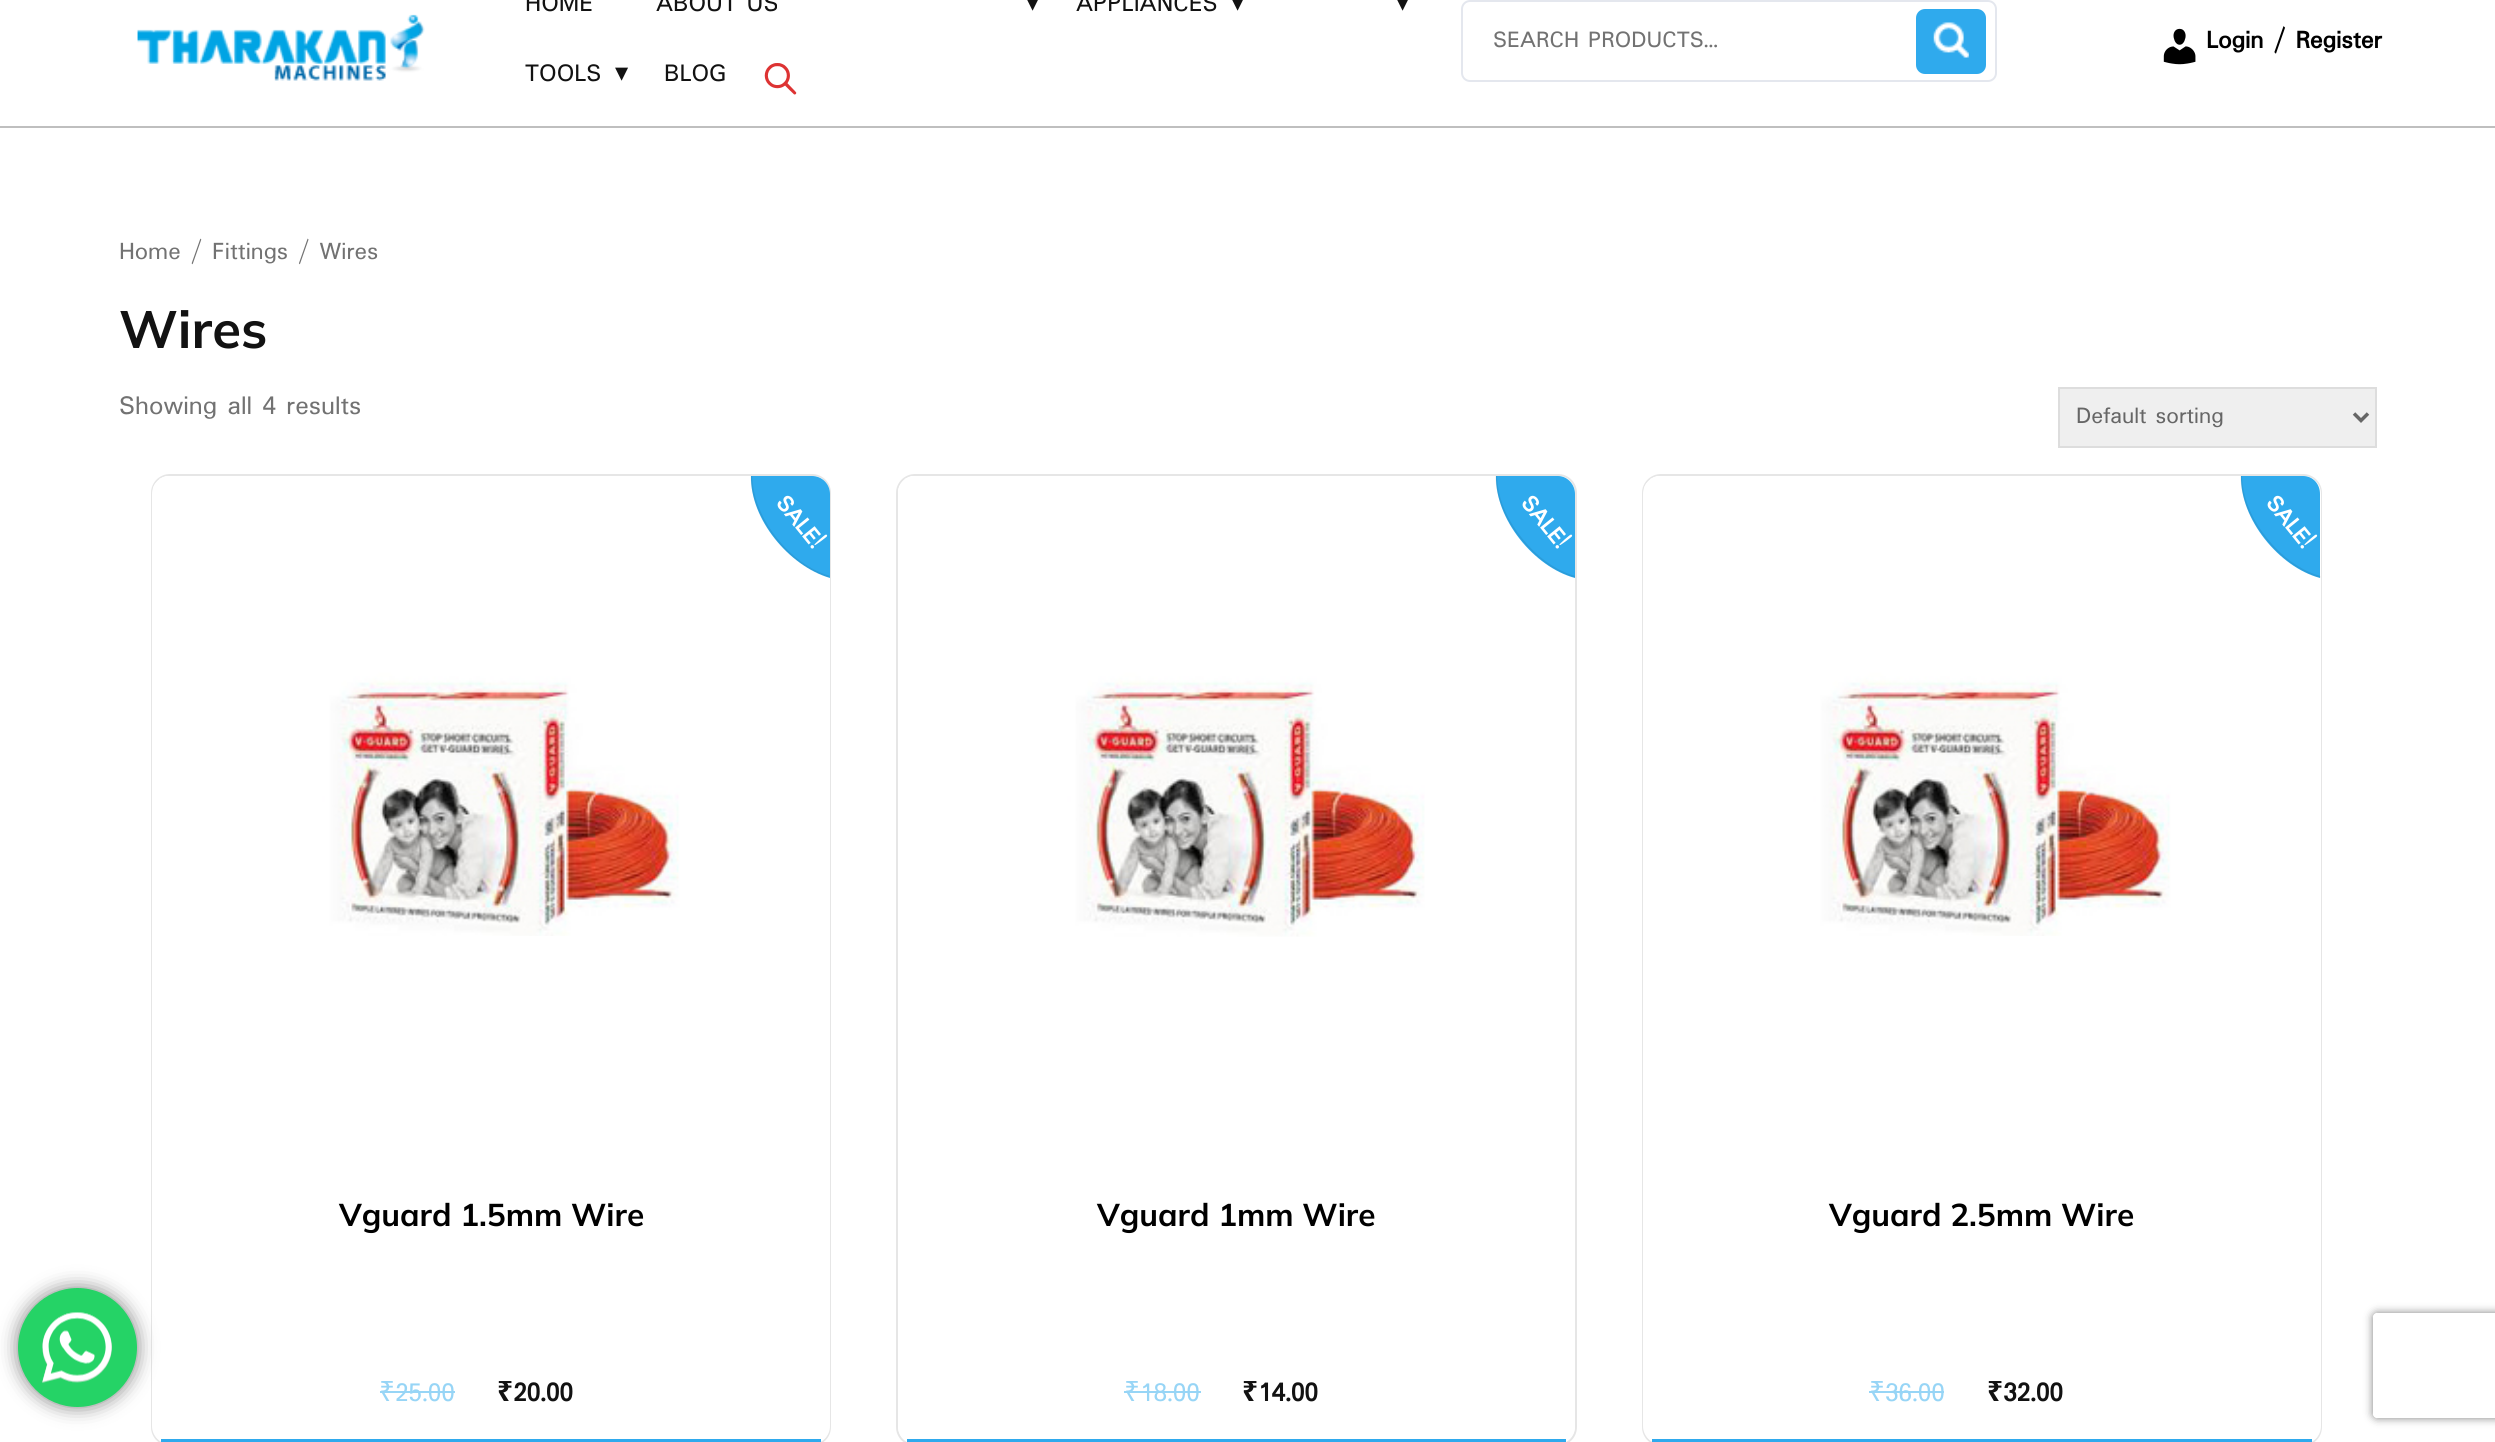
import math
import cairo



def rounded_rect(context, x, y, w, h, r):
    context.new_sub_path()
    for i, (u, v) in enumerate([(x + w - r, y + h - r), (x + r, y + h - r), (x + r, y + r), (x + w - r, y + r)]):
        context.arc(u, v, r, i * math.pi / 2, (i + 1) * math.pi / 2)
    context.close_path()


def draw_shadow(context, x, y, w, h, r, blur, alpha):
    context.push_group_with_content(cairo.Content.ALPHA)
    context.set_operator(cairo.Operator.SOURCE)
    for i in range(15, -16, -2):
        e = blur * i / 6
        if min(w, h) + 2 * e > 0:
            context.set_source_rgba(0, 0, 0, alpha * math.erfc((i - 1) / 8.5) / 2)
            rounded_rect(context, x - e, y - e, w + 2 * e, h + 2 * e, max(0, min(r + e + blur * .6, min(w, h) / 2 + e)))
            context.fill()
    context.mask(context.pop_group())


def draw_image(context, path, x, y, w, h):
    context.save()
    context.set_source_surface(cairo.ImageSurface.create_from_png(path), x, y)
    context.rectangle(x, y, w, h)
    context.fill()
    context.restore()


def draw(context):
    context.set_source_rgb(1, 1, 1)
    context.paint()
    context.set_source_rgb(191 / 255, 191 / 255, 191 / 255)
    context.rectangle(0, 126, 2495, 2)
    context.fill()
    draw_image(context, "images/1.png", 137, 14, 288, 67)
    draw_image(context, "images/2.png", 764, 63, 33, 32)
    rounded_rect(context, 1462, 1, 534, 80, 8)
    context.set_source_rgb(228 / 255, 231 / 255, 238 / 255)
    context.stroke()
    context.set_source_rgb(47 / 255, 170 / 255, 237 / 255)
    rounded_rect(context, 1916, 9, 70, 65, 9)
    context.fill()
    draw_image(context, "images/3.png", 1933, 22, 36, 36)
    draw_image(context, "images/4.png", 2163, 28, 33, 37)
    rounded_rect(context, 152, 475, 678, 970, 18)
    context.set_source_rgb(230 / 255, 230 / 255, 230 / 255)
    context.stroke()
    context.set_source_rgb(1, 1, 1)
    rounded_rect(context, 152, 476, 678, 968, 18)
    context.fill()
    context.set_source_rgb(0, 0, 0)
    draw_shadow(context, 18, 1288, 119, 119, 59.5, 9.5, 0.5)
    context.set_source_rgb(37 / 255, 211 / 255, 102 / 255)
    context.arc(77.5, 1347.5, 59.5, 0, 2 * math.pi)
    context.fill()
    draw_image(context, "images/5.png", 42, 1312, 70, 71)
    context.set_source_rgb(239 / 255, 239 / 255, 239 / 255)
    context.rectangle(2059, 388, 317, 59)
    context.fill_preserve()
    context.set_source_rgb(221 / 255, 221 / 255, 221 / 255)
    context.stroke()
    context.new_path()
    context.move_to(2354, 413.5)
    context.line_to(2361, 420.5)
    context.line_to(2368, 413.5)
    context.set_source_rgb(102 / 255, 102 / 255, 102 / 255)
    context.set_line_width(3.5)
    context.stroke()
    context.set_source_rgb(47 / 255, 170 / 255, 237 / 255)
    context.rectangle(161, 1439, 660, 3)
    context.fill()
    draw_image(context, "images/6.png", 153, 476, 670, 460)
    context.new_path()
    context.move_to(751, 476)
    context.line_to(812, 476)
    context.curve_to(822, 476, 830, 484, 830, 494)
    context.line_to(830, 578)
    context.curve_to(789, 566, 750, 519, 751, 476)
    context.close_path()
    context.fill()
    context.save()
    context.new_path()
    context.move_to(170, 476)
    context.line_to(812, 476)
    context.curve_to(821.5, 476, 829.5, 484, 829.5, 493.5)
    context.line_to(829.5, 1426)
    context.curve_to(829.5, 1433, 821.5, 1438.5, 812, 1438.5)
    context.line_to(170, 1438.5)
    context.curve_to(160, 1438.5, 152, 1433, 152, 1426)
    context.line_to(152, 493.5)
    context.curve_to(152, 484, 160, 476, 170, 476)
    context.close_path()
    context.clip()
    context.new_path()
    context.move_to(857, 474.5)
    context.curve_to(885.5, 510, 891, 553, 868.5, 571)
    context.curve_to(846.5, 589, 805.5, 575, 777, 539.5)
    context.curve_to(748.5, 504.5, 743, 461, 765, 443)
    context.curve_to(787.5, 425.5, 828.5, 439.5, 857, 474.5)
    context.close_path()
    context.set_source_rgba(0, 0, 0, 0.08)
    context.set_line_width(1.7)
    context.stroke()
    context.restore()
    context.set_source_rgb(151 / 255, 213 / 255, 246 / 255)
    context.rectangle(380, 1391, 16, 2)
    context.fill()
    context.rectangle(396, 1391, 59, 2)
    context.fill()
    rounded_rect(context, 897, 475, 679, 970, 18)
    context.set_source_rgb(230 / 255, 230 / 255, 230 / 255)
    context.set_line_width(2)
    context.stroke()
    context.set_source_rgb(1, 1, 1)
    rounded_rect(context, 898, 476, 677, 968, 18)
    context.fill()
    context.set_source_rgb(47 / 255, 170 / 255, 237 / 255)
    context.rectangle(907, 1439, 659, 3)
    context.fill()
    draw_image(context, "images/7.png", 898, 476, 672, 461)
    context.new_path()
    context.move_to(1496, 476)
    context.line_to(1558, 476)
    context.curve_to(1567, 476, 1575, 484, 1575, 494)
    context.line_to(1575, 578)
    context.curve_to(1534, 567, 1495, 519, 1496, 476)
    context.close_path()
    context.fill()
    context.save()
    context.new_path()
    context.move_to(915, 476)
    context.line_to(1557.5, 476)
    context.curve_to(1567, 476, 1575, 484, 1575, 493.5)
    context.line_to(1575, 1426)
    context.curve_to(1575, 1433, 1567, 1438.5, 1557.5, 1438.5)
    context.line_to(915, 1438.5)
    context.curve_to(905.5, 1438.5, 898, 1433, 898, 1426)
    context.line_to(898, 493.5)
    context.curve_to(898, 484, 905.5, 476, 915, 476)
    context.close_path()
    context.clip()
    context.new_path()
    context.move_to(1602, 474.5)
    context.curve_to(1630.5, 510, 1636, 553, 1613.5, 571)
    context.curve_to(1591.5, 589, 1550.5, 575, 1522, 539.5)
    context.curve_to(1493, 504.5, 1488, 461, 1510, 443)
    context.curve_to(1532.5, 425.5, 1573.5, 439.5, 1602, 474.5)
    context.close_path()
    context.set_source_rgba(0, 0, 0, 0.08)
    context.set_line_width(1.7)
    context.stroke()
    context.restore()
    context.set_source_rgb(151 / 255, 213 / 255, 246 / 255)
    context.rectangle(1124, 1391, 15, 2)
    context.fill()
    context.rectangle(1139, 1391, 62, 2)
    context.fill()
    rounded_rect(context, 1643, 475, 678, 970, 18)
    context.set_source_rgb(230 / 255, 230 / 255, 230 / 255)
    context.stroke()
    context.set_source_rgb(1, 1, 1)
    rounded_rect(context, 1643, 476, 678, 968, 18)
    context.fill()
    context.set_source_rgb(47 / 255, 170 / 255, 237 / 255)
    context.rectangle(1652, 1439, 660, 3)
    context.fill()
    draw_image(context, "images/8.png", 1644, 476, 670, 460)
    context.new_path()
    context.move_to(2241, 476)
    context.line_to(2303, 476)
    context.curve_to(2313, 476, 2320, 484, 2320, 494)
    context.line_to(2320, 578)
    context.curve_to(2279, 567, 2240, 519, 2241, 476)
    context.close_path()
    context.fill()
    context.save()
    context.new_path()
    context.move_to(1661, 476)
    context.line_to(2303, 476)
    context.curve_to(2312.5, 476, 2320.5, 484, 2320.5, 493.5)
    context.line_to(2320.5, 1426)
    context.curve_to(2320.5, 1433, 2312.5, 1438.5, 2303, 1438.5)
    context.line_to(1661, 1438.5)
    context.curve_to(1651, 1438.5, 1643, 1433, 1643, 1426)
    context.line_to(1643, 493.5)
    context.curve_to(1643, 484, 1651, 476, 1661, 476)
    context.close_path()
    context.clip()
    context.new_path()
    context.move_to(2347, 474.5)
    context.curve_to(2375.5, 510, 2381, 553, 2358.5, 571)
    context.curve_to(2336.5, 589, 2295.5, 575, 2267, 539.5)
    context.curve_to(2238, 504.5, 2233, 461, 2255, 443)
    context.curve_to(2277.5, 425.5, 2318.5, 439.5, 2347, 474.5)
    context.close_path()
    context.set_source_rgba(0, 0, 0, 0.08)
    context.set_line_width(1.7)
    context.stroke()
    context.restore()
    context.set_source_rgb(151 / 255, 213 / 255, 246 / 255)
    context.rectangle(1869, 1391, 16, 2)
    context.fill()
    context.rectangle(1885, 1391, 59, 2)
    context.fill()
    context.save()
    context.set_fill_rule(cairo.FillRule.EVEN_ODD)
    context.new_path()
    context.move_to(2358, 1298)
    context.line_to(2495, 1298)
    context.line_to(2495, 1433)
    context.line_to(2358, 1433)
    context.close_path()
    context.move_to(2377, 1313)
    context.line_to(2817, 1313)
    context.curve_to(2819, 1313, 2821, 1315, 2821, 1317)
    context.line_to(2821, 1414)
    context.curve_to(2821, 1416, 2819, 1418, 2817, 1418)
    context.line_to(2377, 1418)
    context.curve_to(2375, 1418, 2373, 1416, 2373, 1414)
    context.line_to(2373, 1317)
    context.curve_to(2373, 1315, 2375, 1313, 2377, 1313)
    context.close_path()
    context.clip()
    context.set_source_rgb(128 / 255, 128 / 255, 128 / 255)
    draw_shadow(context, 2373, 1313, 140, 105, 4, 4.5, 1)
    context.restore()
    context.select_font_face("Padauk")
    context.set_font_size(26.25)
    context.set_source_rgb(18 / 255, 18 / 255, 18 / 255)
    context.move_to(525, 11)
    context.show_text("HOME")
    context.move_to(656, 11)
    context.show_text("ABOUT US")
    context.select_font_face("DejaVu Sans")
    context.move_to(1026, 11)
    context.show_text("▾")
    context.select_font_face("Padauk")
    context.move_to(1076, 11)
    context.show_text("APPLIANCES")
    context.select_font_face("DejaVu Sans")
    context.move_to(1231, 11)
    context.show_text("▾")
    context.move_to(1396, 11)
    context.show_text("▾")
    context.select_font_face("Padauk")
    context.move_to(525, 81)
    context.show_text("TOOLS")
    context.select_font_face("DejaVu Sans")
    context.move_to(615, 81)
    context.show_text("▾")
    context.select_font_face("Padauk")
    context.move_to(664, 81)
    context.show_text("BLOG")
    context.set_font_size(24.5)
    context.set_source_rgb(114 / 255, 114 / 255, 114 / 255)
    context.move_to(1493, 47)
    context.show_text("SEARCH PRODUCTS…")
    context.select_font_face("Padauk", cairo.FontSlant.NORMAL, cairo.FontWeight.BOLD)
    context.set_font_size(26.25)
    context.set_source_rgb(0, 0, 0)
    context.move_to(2206, 48)
    context.show_text("Login / Register")
    context.select_font_face("Padauk")
    context.set_font_size(25.75)
    context.set_source_rgb(114 / 255, 114 / 255, 114 / 255)
    context.move_to(119, 259)
    context.show_text("Home / Fittings / Wires")
    context.select_font_face("Mulish", cairo.FontSlant.NORMAL, cairo.FontWeight.BOLD)
    context.set_font_size(52.5)
    context.set_source_rgb(18 / 255, 18 / 255, 18 / 255)
    context.move_to(119, 348)
    context.show_text("Wires")
    context.select_font_face("Padauk")
    context.set_font_size(28)
    context.set_source_rgb(114 / 255, 114 / 255, 114 / 255)
    context.move_to(119, 414)
    context.show_text("Showing all 4 results")
    context.set_font_size(24.5)
    context.set_source_rgb(102 / 255, 102 / 255, 102 / 255)
    context.move_to(2076, 423)
    context.show_text("Default sorting")
    context.select_font_face("Padauk", cairo.FontSlant.NORMAL, cairo.FontWeight.BOLD)
    context.set_source_rgb(1, 1, 1)
    context.save()
    context.translate(775, 503)
    context.rotate(51 * math.pi / 180)
    context.move_to(0, 0)
    context.show_text("SALE!")
    context.restore()
    context.select_font_face("Mulish", cairo.FontSlant.NORMAL, cairo.FontWeight.BOLD)
    context.set_font_size(31.5)
    context.set_source_rgb(0, 0, 0)
    context.move_to(339, 1226)
    context.show_text("Vguard 1.5mm Wire")
    context.select_font_face("Noto Sans")
    context.set_font_size(28)
    context.set_source_rgb(151 / 255, 213 / 255, 246 / 255)
    context.move_to(379, 1401)
    context.show_text("₹")
    context.select_font_face("Padauk")
    context.move_to(395, 1401)
    context.show_text("25.00")
    context.select_font_face("Noto Sans", cairo.FontSlant.NORMAL, cairo.FontWeight.BOLD)
    context.set_source_rgb(18 / 255, 18 / 255, 18 / 255)
    context.move_to(497, 1401)
    context.show_text("₹")
    context.select_font_face("Padauk", cairo.FontSlant.NORMAL, cairo.FontWeight.BOLD)
    context.move_to(513, 1401)
    context.show_text("20.00")
    context.set_font_size(24.5)
    context.set_source_rgb(1, 1, 1)
    context.save()
    context.translate(1520, 503)
    context.rotate(51 * math.pi / 180)
    context.move_to(0, 0)
    context.show_text("SALE!")
    context.restore()
    context.select_font_face("Mulish", cairo.FontSlant.NORMAL, cairo.FontWeight.BOLD)
    context.set_font_size(31.5)
    context.set_source_rgb(0, 0, 0)
    context.move_to(1097, 1226)
    context.show_text("Vguard 1mm Wire")
    context.select_font_face("Noto Sans")
    context.set_font_size(28)
    context.set_source_rgb(151 / 255, 213 / 255, 246 / 255)
    context.move_to(1124, 1401)
    context.show_text("₹")
    context.select_font_face("Padauk")
    context.move_to(1140, 1401)
    context.show_text("18.00")
    context.select_font_face("Noto Sans", cairo.FontSlant.NORMAL, cairo.FontWeight.BOLD)
    context.set_source_rgb(18 / 255, 18 / 255, 18 / 255)
    context.move_to(1242, 1401)
    context.show_text("₹")
    context.select_font_face("Padauk", cairo.FontSlant.NORMAL, cairo.FontWeight.BOLD)
    context.move_to(1258, 1401)
    context.show_text("14.00")
    context.set_font_size(24.5)
    context.set_source_rgb(1, 1, 1)
    context.save()
    context.translate(2265, 503)
    context.rotate(51 * math.pi / 180)
    context.move_to(0, 0)
    context.show_text("SALE!")
    context.restore()
    context.select_font_face("Mulish", cairo.FontSlant.NORMAL, cairo.FontWeight.BOLD)
    context.set_font_size(31.5)
    context.set_source_rgb(0, 0, 0)
    context.move_to(1829, 1226)
    context.show_text("Vguard 2.5mm Wire")
    context.select_font_face("Noto Sans")
    context.set_font_size(28)
    context.set_source_rgb(151 / 255, 213 / 255, 246 / 255)
    context.move_to(1869, 1401)
    context.show_text("₹")
    context.select_font_face("Padauk")
    context.move_to(1885, 1401)
    context.show_text("36.00")
    context.select_font_face("Noto Sans", cairo.FontSlant.NORMAL, cairo.FontWeight.BOLD)
    context.set_source_rgb(18 / 255, 18 / 255, 18 / 255)
    context.move_to(1987, 1401)
    context.show_text("₹")
    context.select_font_face("Padauk", cairo.FontSlant.NORMAL, cairo.FontWeight.BOLD)
    context.move_to(2003, 1401)
    context.show_text("32.00")


surface = cairo.ImageSurface(cairo.Format.RGB24, 2495, 1442)
context = cairo.Context(surface)
options = cairo.FontOptions()
options.set_hint_metrics(cairo.HintMetrics.OFF)
options.set_hint_style(cairo.HintStyle.NONE)
context.set_font_options(options)
context.set_miter_limit(4)
draw(context)
surface.write_to_png("out.png")
